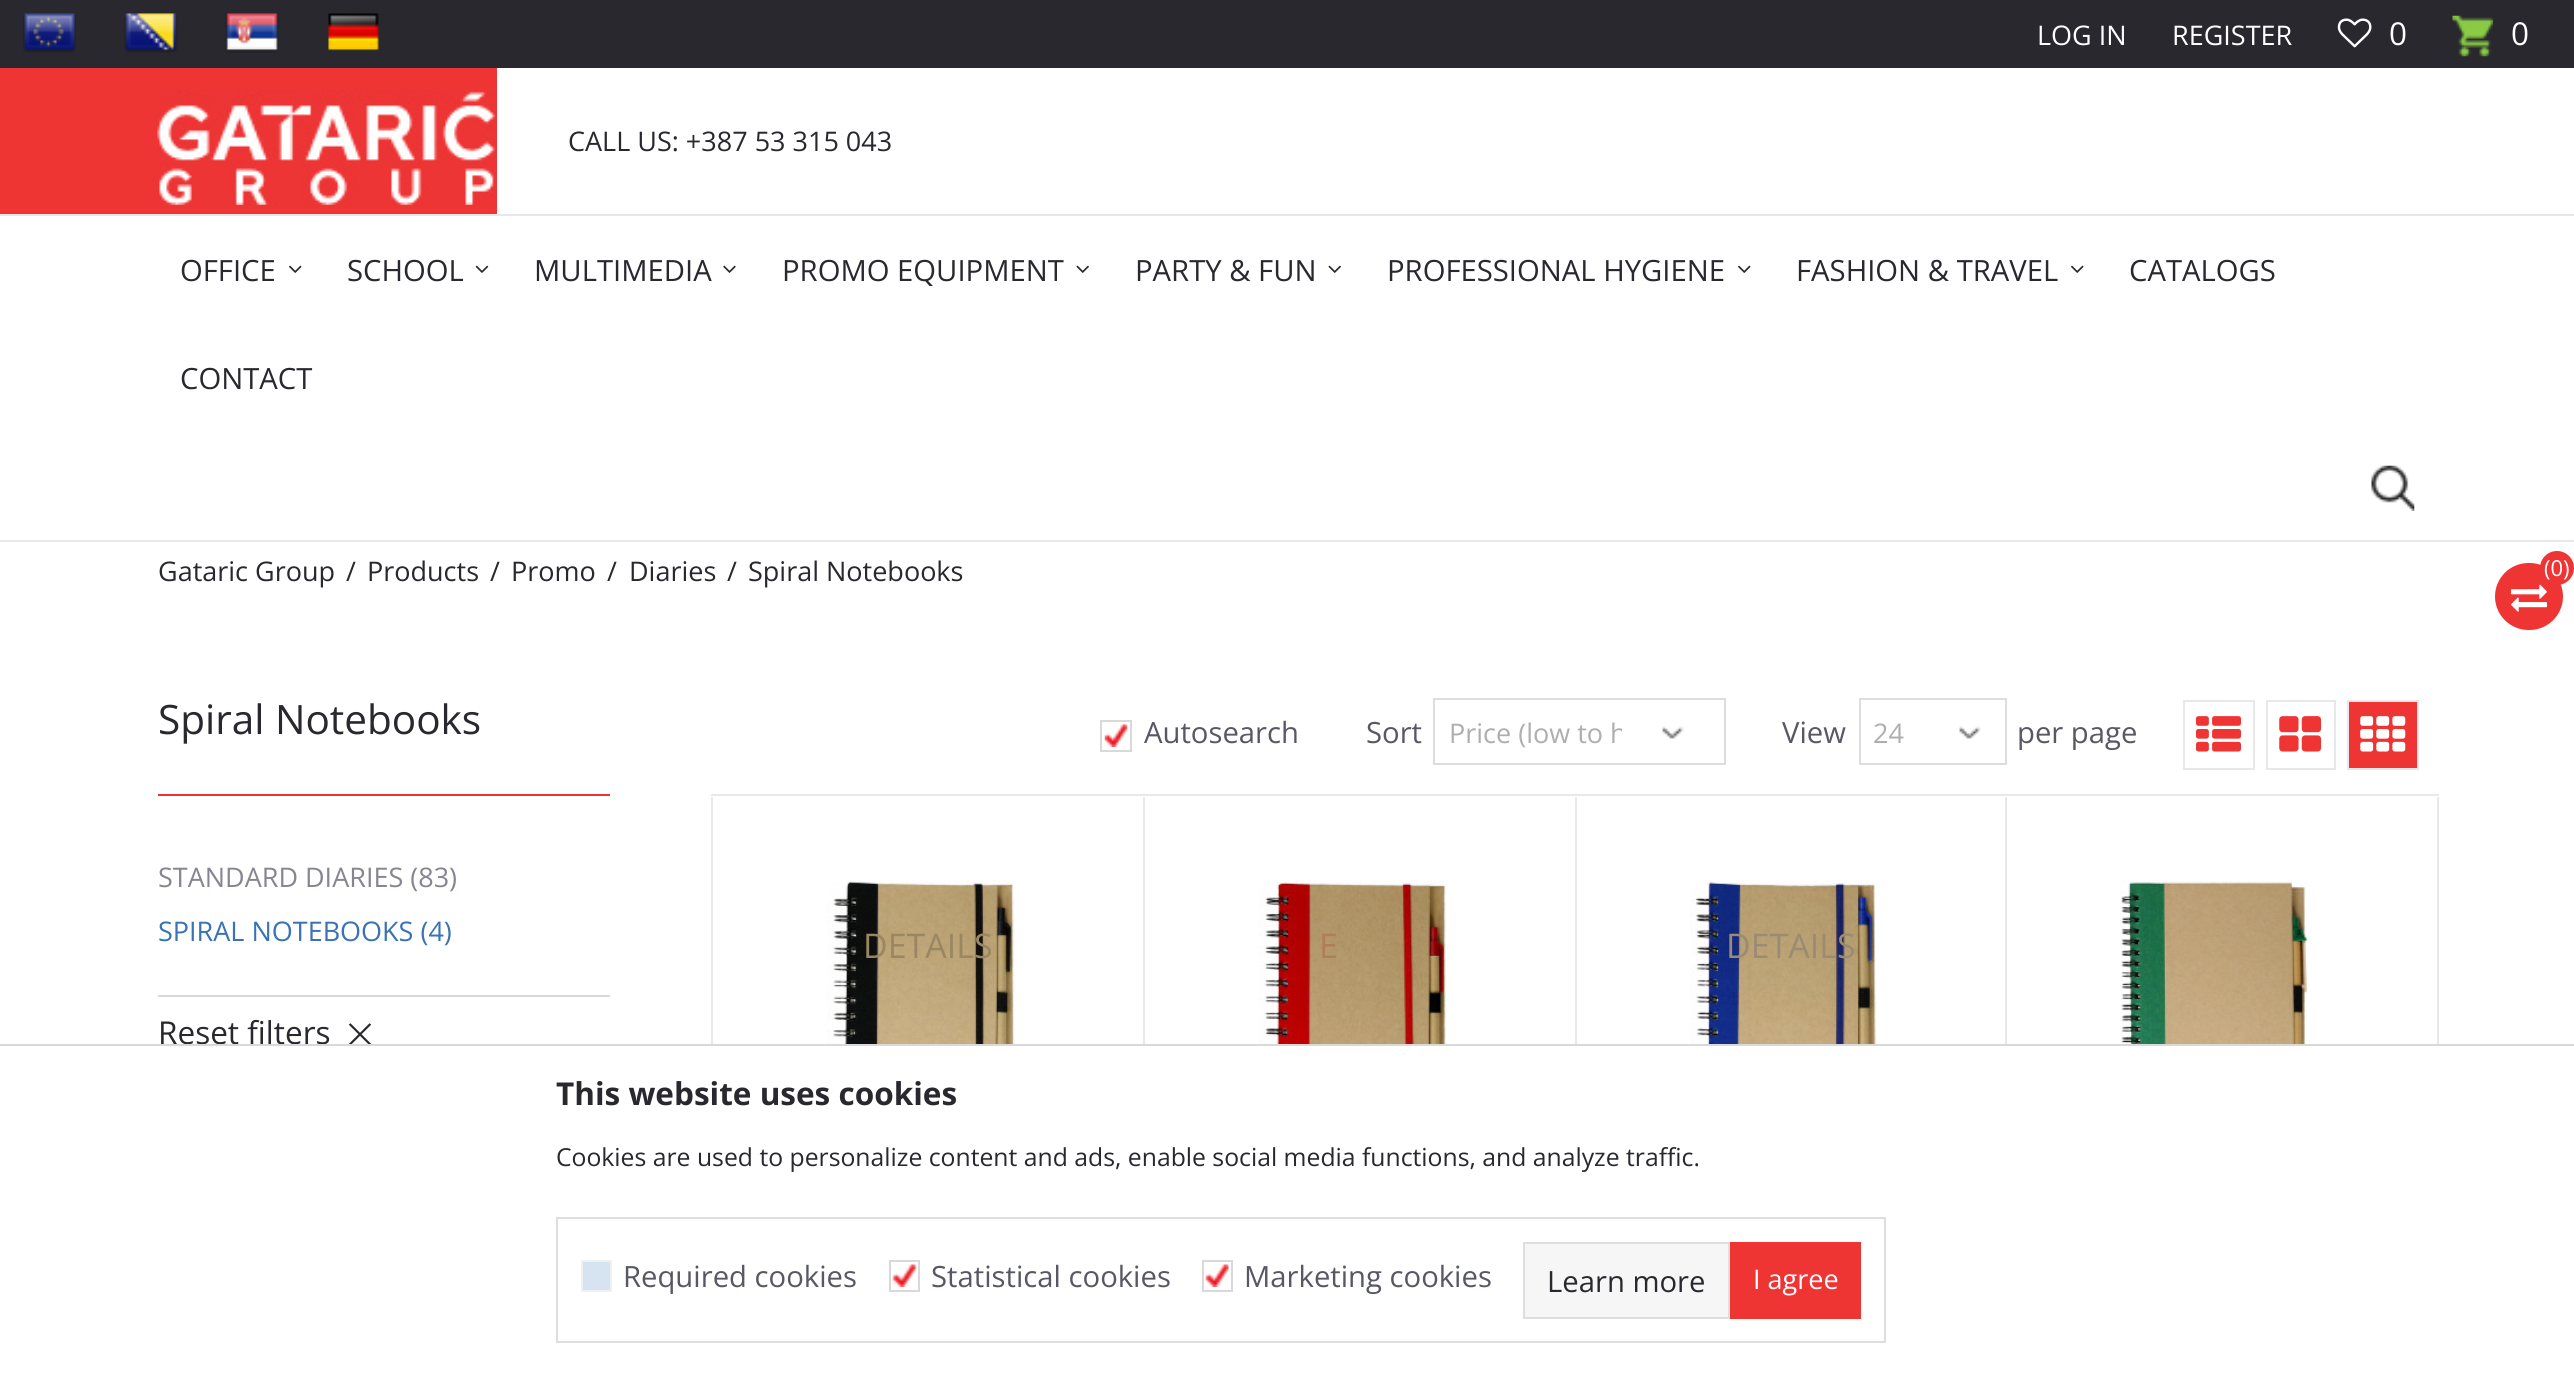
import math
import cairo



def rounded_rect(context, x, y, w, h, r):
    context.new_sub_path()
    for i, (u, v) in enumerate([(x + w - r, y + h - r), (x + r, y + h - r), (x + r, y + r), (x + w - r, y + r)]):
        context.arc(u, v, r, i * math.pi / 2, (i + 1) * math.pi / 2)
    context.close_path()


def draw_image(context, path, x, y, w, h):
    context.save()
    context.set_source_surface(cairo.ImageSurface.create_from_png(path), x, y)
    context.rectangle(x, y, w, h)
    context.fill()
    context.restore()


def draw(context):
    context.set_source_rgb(1, 1, 1)
    context.paint()
    context.set_source_rgb(40 / 255, 40 / 255, 46 / 255)
    context.rectangle(0, 0, 2574, 68)
    context.fill()
    draw_image(context, "images/1.png", 23, 13, 53, 40)
    draw_image(context, "images/2.png", 124, 13, 54, 40)
    draw_image(context, "images/3.png", 225, 13, 54, 40)
    draw_image(context, "images/4.png", 328, 13, 51, 38)
    draw_image(context, "images/5.png", 2337, 18, 35, 30)
    draw_image(context, "images/6.png", 2452, 15, 41, 42)
    context.set_source_rgb(239 / 255, 52 / 255, 52 / 255)
    context.rectangle(0, 68, 497, 146)
    context.fill()
    draw_image(context, "images/7.png", 157, 90, 338, 115)
    context.set_source_rgb(232 / 255, 232 / 255, 232 / 255)
    context.rectangle(0, 214, 2574, 2)
    context.fill()
    context.rectangle(0, 540, 2574, 2)
    context.fill()
    draw_image(context, "images/8.png", 289, 265, 13, 8)
    draw_image(context, "images/9.png", 475, 265, 14, 8)
    draw_image(context, "images/10.png", 723, 265, 13, 8)
    draw_image(context, "images/11.png", 1076, 265, 13, 8)
    draw_image(context, "images/11.png", 1328, 265, 13, 8)
    draw_image(context, "images/8.png", 1738, 265, 13, 8)
    draw_image(context, "images/8.png", 2071, 265, 13, 8)
    draw_image(context, "images/12.png", 2371, 465, 44, 46)
    context.set_source_rgb(239 / 255, 52 / 255, 52 / 255)
    rounded_rect(context, 2495, 563, 68, 67, 33.5)
    context.fill()
    draw_image(context, "images/13.png", 2511, 584, 36, 28)
    context.arc(2557, 568, 17, 0, 2 * math.pi)
    context.fill()
    draw_image(context, "images/14.png", 1104, 724, 24, 23)
    context.rectangle(1101, 721, 30, 30)
    context.set_source_rgb(217 / 255, 217 / 255, 217 / 255)
    context.stroke()
    draw_image(context, "images/15.png", 1662, 726, 22, 13)
    context.rectangle(1434, 699, 291, 65)
    context.set_source_rgb(221 / 255, 221 / 255, 221 / 255)
    context.stroke()
    draw_image(context, "images/16.png", 1959, 726, 22, 13)
    context.rectangle(1860, 699, 146, 65)
    context.stroke()
    context.rectangle(2184, 701, 70, 68)
    context.set_source_rgb(232 / 255, 232 / 255, 232 / 255)
    context.stroke()
    draw_image(context, "images/17.png", 2196, 716, 45, 36)
    context.rectangle(2267, 701, 68, 68)
    context.stroke()
    draw_image(context, "images/18.png", 2279, 716, 43, 36)
    context.set_source_rgb(239 / 255, 52 / 255, 52 / 255)
    context.rectangle(2348, 701, 70, 68)
    context.fill_preserve()
    context.set_source_rgb(232 / 255, 232 / 255, 232 / 255)
    context.stroke()
    draw_image(context, "images/19.png", 2360, 716, 46, 36)
    context.set_source_rgb(239 / 255, 52 / 255, 52 / 255)
    context.rectangle(158, 794, 452, 2)
    context.fill()
    context.set_source_rgb(217 / 255, 217 / 255, 217 / 255)
    context.rectangle(158, 995, 452, 2)
    context.fill()
    draw_image(context, "images/20.png", 348, 1023, 24, 21)
    context.set_source_rgb(232 / 255, 232 / 255, 232 / 255)
    context.rectangle(711, 794, 1728, 2)
    context.fill()
    context.rectangle(711, 797, 2, 247)
    context.fill()
    context.rectangle(1143, 797, 2, 247)
    context.fill()
    draw_image(context, "images/21.png", 827, 880, 188, 164)
    context.rectangle(1575, 797, 2, 247)
    context.fill()
    draw_image(context, "images/22.png", 1259, 880, 188, 164)
    context.rectangle(2005, 797, 2, 247)
    context.fill()
    draw_image(context, "images/23.png", 1690, 880, 188, 164)
    context.rectangle(2437, 797, 2, 247)
    context.fill()
    draw_image(context, "images/24.png", 2120, 880, 189, 164)
    context.select_font_face("Open Sans")
    context.set_font_size(27)
    context.set_source_rgb(1, 1, 1)
    context.move_to(2037, 45)
    context.show_text("LOG IN")
    context.move_to(2172, 45)
    context.show_text("REGISTER")
    context.set_font_size(31.5)
    context.move_to(2389, 45)
    context.show_text("0")
    context.move_to(2511, 45)
    context.show_text("0")
    context.set_font_size(27)
    context.set_source_rgb(40 / 255, 40 / 255, 46 / 255)
    context.move_to(568, 151)
    context.show_text("CALL US: +387 53 315 043")
    context.set_font_size(29.25)
    context.move_to(180, 281)
    context.show_text("OFFICE")
    context.move_to(347, 281)
    context.show_text("SCHOOL")
    context.move_to(534, 281)
    context.show_text("MULTIMEDIA")
    context.move_to(782, 281)
    context.show_text("PROMO EQUIPMENT")
    context.move_to(1135, 281)
    context.show_text("PARTY & FUN")
    context.move_to(1387, 281)
    context.show_text("PROFESSIONAL HYGIENE")
    context.move_to(1796, 281)
    context.show_text("FASHION & TRAVEL")
    context.move_to(2129, 281)
    context.show_text("CATALOGS")
    context.move_to(180, 389)
    context.show_text("CONTACT")
    context.set_font_size(27)
    context.move_to(158, 581)
    context.show_text("Gataric Group")
    context.move_to(346, 581)
    context.show_text("/")
    context.move_to(367, 581)
    context.show_text("Products")
    context.move_to(490, 581)
    context.show_text("/")
    context.move_to(511, 581)
    context.show_text("Promo")
    context.move_to(607, 581)
    context.show_text("/")
    context.move_to(629, 581)
    context.show_text("Diaries")
    context.move_to(727, 581)
    context.show_text("/")
    context.move_to(748, 581)
    context.show_text("Spiral Notebooks")
    context.set_font_size(22)
    context.set_source_rgb(1, 1, 1)
    context.move_to(2544, 576)
    context.show_text("(0)")
    context.set_font_size(40.5)
    context.set_source_rgb(40 / 255, 40 / 255, 46 / 255)
    context.move_to(158, 734)
    context.show_text("Spiral Notebooks")
    context.set_font_size(29.25)
    context.set_source_rgb(88 / 255, 88 / 255, 101 / 255)
    context.move_to(1144, 743)
    context.show_text("Autosearch")
    context.move_to(1366, 743)
    context.show_text("Sort")
    context.save()
    context.rectangle(1447, 700, 175, 67)
    context.clip()
    context.set_font_size(27)
    context.set_source_rgb(174 / 255, 174 / 255, 174 / 255)
    context.move_to(1449, 743)
    context.show_text("Price (low to h")
    context.restore()
    context.move_to(1782, 743)
    context.show_text("View")
    context.set_font_size(27)
    context.set_source_rgb(174 / 255, 174 / 255, 174 / 255)
    context.move_to(1873, 743)
    context.show_text("24")
    context.set_font_size(29.25)
    context.set_source_rgb(88 / 255, 88 / 255, 101 / 255)
    context.move_to(2017, 743)
    context.show_text("per page")
    context.set_font_size(27)
    context.set_source_rgb(134 / 255, 134 / 255, 146 / 255)
    context.move_to(158, 887)
    context.show_text("STANDARD DIARIES (83)")
    context.set_source_rgb(57 / 255, 115 / 255, 181 / 255)
    context.move_to(158, 941)
    context.show_text("SPIRAL NOTEBOOKS (4)")
    context.set_font_size(31.5)
    context.set_source_rgb(40 / 255, 40 / 255, 46 / 255)
    context.move_to(158, 1044)
    context.show_text("Reset filters")
    context.set_font_size(34)
    context.set_source_rgb(154 / 255, 135 / 255, 98 / 255)
    context.move_to(863, 958)
    context.show_text("DETAILS")
    context.set_source_rgb(176 / 255, 125 / 255, 87 / 255)
    context.move_to(1319, 958)
    context.show_text("E")
    context.set_source_rgb(156 / 255, 139 / 255, 115 / 255)
    context.move_to(1726, 958)
    context.show_text("DETAILS")
    context.rectangle(-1, 1045, 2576, 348)
    context.set_source_rgb(217 / 255, 217 / 255, 217 / 255)
    context.stroke()
    context.select_font_face("Open Sans", cairo.FontSlant.NORMAL, cairo.FontWeight.BOLD)
    context.set_font_size(31.5)
    context.set_source_rgb(40 / 255, 40 / 255, 46 / 255)
    context.move_to(556, 1105)
    context.show_text("This website uses cookies")
    context.select_font_face("Open Sans")
    context.set_font_size(24.75)
    context.move_to(556, 1166)
    context.show_text("Cookies are used to personalize content and ads, enable social media functions, and analyze traffic.")
    context.rectangle(557, 1218, 1328, 124)
    context.set_source_rgb(222 / 255, 222 / 255, 222 / 255)
    context.stroke()
    context.set_source_rgb(214 / 255, 227 / 255, 240 / 255)
    context.rectangle(582, 1261, 29, 30)
    context.fill_preserve()
    context.set_source_rgb(240 / 255, 240 / 255, 240 / 255)
    context.stroke()
    context.set_font_size(29.25)
    context.set_source_rgb(88 / 255, 88 / 255, 101 / 255)
    context.move_to(623, 1287)
    context.show_text("Required cookies")
    draw_image(context, "images/25.png", 892, 1264, 25, 23)
    context.rectangle(890, 1261, 29, 30)
    context.set_source_rgb(217 / 255, 217 / 255, 217 / 255)
    context.stroke()
    context.set_source_rgb(88 / 255, 88 / 255, 101 / 255)
    context.move_to(931, 1287)
    context.show_text("Statistical cookies")
    draw_image(context, "images/26.png", 1205, 1264, 24, 23)
    context.rectangle(1203, 1261, 29, 30)
    context.set_source_rgb(217 / 255, 217 / 255, 217 / 255)
    context.stroke()
    context.set_source_rgb(88 / 255, 88 / 255, 101 / 255)
    context.move_to(1244, 1287)
    context.show_text("Marketing cookies")
    context.set_source_rgb(246 / 255, 246 / 255, 246 / 255)
    context.rectangle(1524, 1243, 205, 75)
    context.fill_preserve()
    context.set_source_rgb(222 / 255, 222 / 255, 222 / 255)
    context.stroke()
    context.set_source_rgb(40 / 255, 40 / 255, 46 / 255)
    context.move_to(1547, 1292)
    context.show_text("Learn more")
    context.set_source_rgb(239 / 255, 52 / 255, 52 / 255)
    context.rectangle(1730, 1242, 131, 77)
    context.fill()
    context.set_font_size(27)
    context.set_source_rgb(1, 1, 1)
    context.move_to(1753, 1289)
    context.show_text("I agree")


surface = cairo.ImageSurface(cairo.Format.RGB24, 2574, 1392)
context = cairo.Context(surface)
options = cairo.FontOptions()
options.set_hint_metrics(cairo.HintMetrics.OFF)
options.set_hint_style(cairo.HintStyle.NONE)
context.set_font_options(options)
context.set_miter_limit(4)
draw(context)
surface.write_to_png("out.png")
